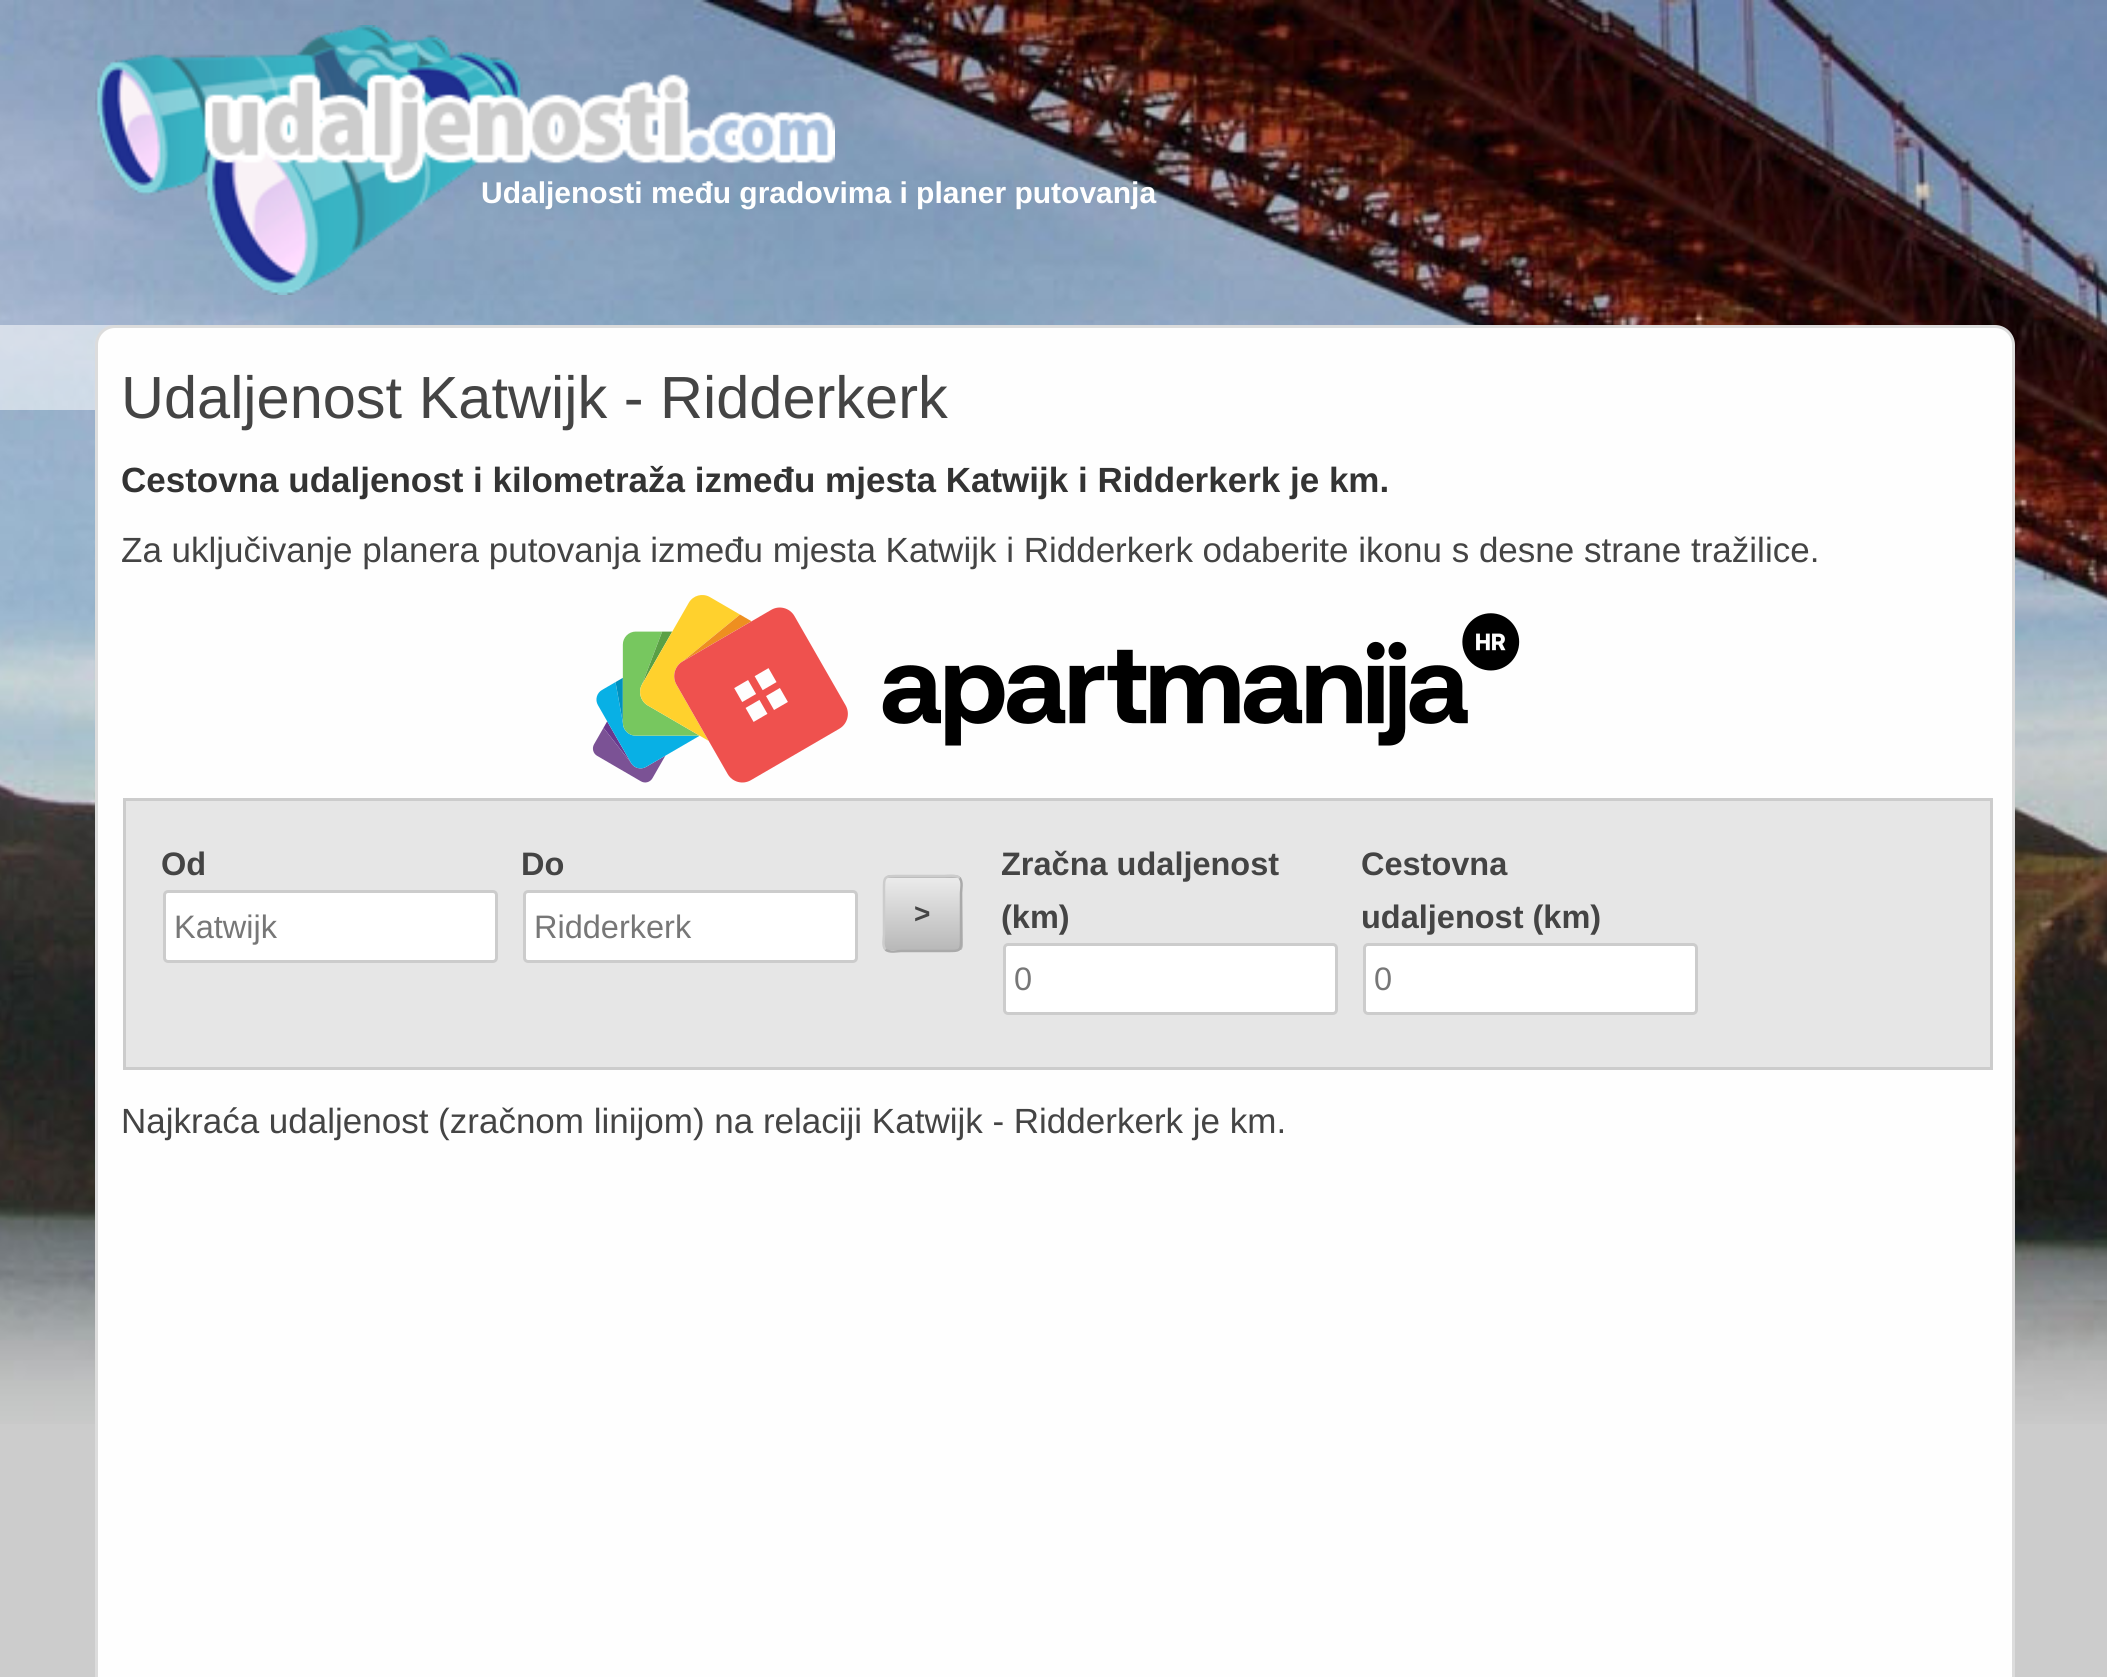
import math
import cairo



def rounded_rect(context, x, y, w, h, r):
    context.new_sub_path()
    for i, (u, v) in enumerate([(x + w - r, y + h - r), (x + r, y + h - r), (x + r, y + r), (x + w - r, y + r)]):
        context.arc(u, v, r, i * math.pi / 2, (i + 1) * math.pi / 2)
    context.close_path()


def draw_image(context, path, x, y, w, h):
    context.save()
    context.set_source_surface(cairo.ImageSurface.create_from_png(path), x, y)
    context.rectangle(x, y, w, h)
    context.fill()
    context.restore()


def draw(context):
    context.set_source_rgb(204 / 255, 204 / 255, 204 / 255)
    context.paint()
    draw_image(context, "images/1.png", 0, 0, 2107, 1424)
    context.set_source_rgba(1, 1, 1, 0.54)
    context.rectangle(0, 325, 115, 85)
    context.fill()
    draw_image(context, "images/2.png", 95, 25, 740, 270)
    context.set_source_rgb(254 / 255, 254 / 255, 254 / 255)
    rounded_rect(context, 96.5, 326.5, 1917, 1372, 18.5)
    context.fill_preserve()
    context.set_source_rgb(220 / 255, 220 / 255, 220 / 255)
    context.set_line_width(3)
    context.stroke()
    draw_image(context, "images/3.png", 592, 595, 928, 188)
    context.set_source_rgb(230 / 255, 230 / 255, 230 / 255)
    context.rectangle(124.5, 799.5, 1867, 269)
    context.fill_preserve()
    context.set_source_rgb(204 / 255, 204 / 255, 204 / 255)
    context.stroke()
    context.set_source_rgb(1, 1, 1)
    rounded_rect(context, 164.5, 891.5, 332, 70, 3.5)
    context.fill_preserve()
    context.set_source_rgb(204 / 255, 204 / 255, 204 / 255)
    context.stroke()
    context.set_source_rgb(1, 1, 1)
    rounded_rect(context, 524.5, 891.5, 332, 70, 3.5)
    context.fill_preserve()
    context.set_source_rgb(204 / 255, 204 / 255, 204 / 255)
    context.stroke()
    context.save()
    rounded_rect(context, 883, 875, 80, 78, 8)
    context.clip()
    gradient = cairo.LinearGradient(923, 805, 923, 878)
    gradient.add_color_stop_rgba(0, 235 / 255, 235 / 255, 235 / 255, 1)
    gradient.add_color_stop_rgba(1, 184 / 255, 184 / 255, 184 / 255, 1)
    context.set_source(gradient)
    context.rectangle(883, 875, 80, 3)
    context.fill()
    gradient = cairo.LinearGradient(923, 878, 923, 950)
    gradient.add_color_stop_rgba(0, 235 / 255, 235 / 255, 235 / 255, 1)
    gradient.add_color_stop_rgba(1, 184 / 255, 184 / 255, 184 / 255, 1)
    context.set_source(gradient)
    context.rectangle(883, 878, 80, 72)
    context.fill()
    gradient = cairo.LinearGradient(923, 950, 923, 1023)
    gradient.add_color_stop_rgba(0, 235 / 255, 235 / 255, 235 / 255, 1)
    gradient.add_color_stop_rgba(1, 184 / 255, 184 / 255, 184 / 255, 1)
    context.set_source(gradient)
    context.rectangle(883, 950, 80, 3)
    context.fill()
    context.restore()
    context.new_path()
    context.move_to(959.5, 878)
    context.curve_to(963, 881.5, 961, 889.5, 961, 893)
    context.line_to(961, 934.5)
    context.curve_to(961, 952, 962, 951, 944, 951)
    context.line_to(901, 951)
    context.curve_to(898, 951, 889, 953, 885.5, 949.5)
    context.set_source_rgb(170 / 255, 170 / 255, 170 / 255)
    context.set_line_width(2.5)
    context.stroke()
    context.new_path()
    context.move_to(885.5, 949.5)
    context.curve_to(882, 946, 884, 938, 884, 934.5)
    context.line_to(884, 893)
    context.curve_to(884, 875.5, 883, 876, 901, 876)
    context.line_to(944, 876)
    context.curve_to(947, 876, 956, 874.5, 959.5, 878)
    context.set_source_rgb(204 / 255, 204 / 255, 204 / 255)
    context.stroke()
    context.set_source_rgb(1, 1, 1)
    rounded_rect(context, 1004.5, 944.5, 332, 69, 3.5)
    context.fill_preserve()
    context.set_source_rgb(204 / 255, 204 / 255, 204 / 255)
    context.set_line_width(3)
    context.stroke()
    context.set_source_rgb(1, 1, 1)
    rounded_rect(context, 1364.5, 944.5, 332, 69, 3.5)
    context.fill_preserve()
    context.set_source_rgb(204 / 255, 204 / 255, 204 / 255)
    context.stroke()
    context.select_font_face("Liberation Sans", cairo.FontSlant.NORMAL, cairo.FontWeight.BOLD)
    context.set_font_size(30)
    context.set_source_rgb(1, 1, 1)
    context.move_to(481, 203)
    context.show_text("Udaljenosti među gradovima i planer putovanja")
    context.select_font_face("Liberation Sans")
    context.set_font_size(59.5)
    context.set_source_rgb(68 / 255, 68 / 255, 68 / 255)
    context.move_to(121, 418)
    context.show_text("Udaljenost Katwijk - Ridderkerk")
    context.select_font_face("Liberation Sans", cairo.FontSlant.NORMAL, cairo.FontWeight.BOLD)
    context.set_font_size(35)
    context.set_source_rgb(51 / 255, 51 / 255, 51 / 255)
    context.move_to(121, 492)
    context.show_text("Cestovna udaljenost i kilometraža između mjesta Katwijk i Ridderkerk je km.")
    context.select_font_face("Liberation Sans")
    context.set_source_rgb(68 / 255, 68 / 255, 68 / 255)
    context.move_to(121, 562)
    context.show_text("Za uključivanje planera putovanja između mjesta Katwijk i Ridderkerk odaberite ikonu s desne strane tražilice.")
    context.select_font_face("Liberation Sans", cairo.FontSlant.NORMAL, cairo.FontWeight.BOLD)
    context.set_font_size(32.5)
    context.move_to(161, 875)
    context.show_text("Od")
    context.select_font_face("Liberation Sans")
    context.set_source_rgb(119 / 255, 119 / 255, 119 / 255)
    context.move_to(174, 938)
    context.show_text("Katwijk")
    context.select_font_face("Liberation Sans", cairo.FontSlant.NORMAL, cairo.FontWeight.BOLD)
    context.set_source_rgb(68 / 255, 68 / 255, 68 / 255)
    context.move_to(521, 875)
    context.show_text("Do")
    context.select_font_face("Liberation Sans")
    context.set_source_rgb(119 / 255, 119 / 255, 119 / 255)
    context.move_to(534, 938)
    context.show_text("Ridderkerk")
    context.select_font_face("Liberation Sans", cairo.FontSlant.NORMAL, cairo.FontWeight.BOLD)
    context.set_font_size(28)
    context.set_source_rgb(68 / 255, 68 / 255, 68 / 255)
    context.move_to(914, 923)
    context.show_text(">")
    context.set_font_size(32.5)
    context.move_to(1001, 875)
    context.show_text("Zračna udaljenost")
    context.move_to(1001, 928)
    context.show_text("(km)")
    context.select_font_face("Liberation Sans")
    context.set_source_rgb(119 / 255, 119 / 255, 119 / 255)
    context.move_to(1014, 990)
    context.show_text("0")
    context.select_font_face("Liberation Sans", cairo.FontSlant.NORMAL, cairo.FontWeight.BOLD)
    context.set_source_rgb(68 / 255, 68 / 255, 68 / 255)
    context.move_to(1361, 875)
    context.show_text("Cestovna")
    context.move_to(1361, 928)
    context.show_text("udaljenost (km)")
    context.select_font_face("Liberation Sans")
    context.set_source_rgb(119 / 255, 119 / 255, 119 / 255)
    context.move_to(1374, 990)
    context.show_text("0")
    context.set_font_size(35)
    context.set_source_rgb(68 / 255, 68 / 255, 68 / 255)
    context.move_to(121, 1133)
    context.show_text("Najkraća udaljenost (zračnom linijom) na relaciji Katwijk - Ridderkerk je km.")


surface = cairo.ImageSurface(cairo.Format.RGB24, 2107, 1677)
context = cairo.Context(surface)
options = cairo.FontOptions()
options.set_hint_metrics(cairo.HintMetrics.OFF)
options.set_hint_style(cairo.HintStyle.NONE)
context.set_font_options(options)
context.set_miter_limit(4)
draw(context)
surface.write_to_png("out.png")
